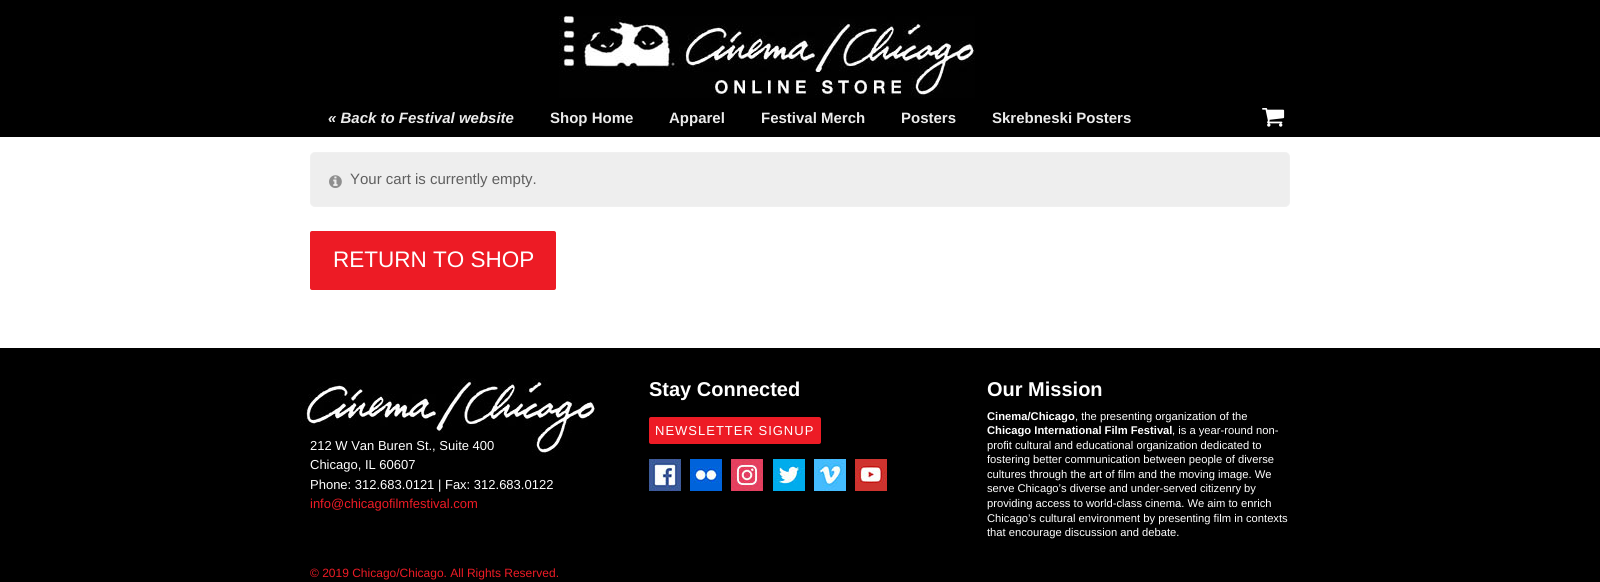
import math
import cairo



def draw_spaced(context, x, y, s, letter, word):
    context.move_to(x, y)
    for ch in s:
        context.show_text(ch)
        context.rel_move_to(letter + word * (ch == ' '), 0)


def rounded_rect(context, x, y, w, h, r):
    context.new_sub_path()
    for i, (u, v) in enumerate([(x + w - r, y + h - r), (x + r, y + h - r), (x + r, y + r), (x + w - r, y + r)]):
        context.arc(u, v, r, i * math.pi / 2, (i + 1) * math.pi / 2)
    context.close_path()


def draw_image(context, path, x, y, w, h):
    context.save()
    context.set_source_surface(cairo.ImageSurface.create_from_png(path), x, y)
    context.rectangle(x, y, w, h)
    context.fill()
    context.restore()


def draw(context):
    context.set_source_rgb(1, 1, 1)
    context.paint()
    context.set_source_rgb(0, 0, 0)
    context.rectangle(0, 0, 1600, 137)
    context.fill()
    draw_image(context, "images/1.png", 559, 16, 416, 82)
    draw_image(context, "images/2.png", 1262, 108, 23, 19)
    context.set_source_rgb(238 / 255, 238 / 255, 238 / 255)
    rounded_rect(context, 310.5, 152.5, 979, 54, 4.5)
    context.fill_preserve()
    context.set_source_rgb(240 / 255, 240 / 255, 240 / 255)
    context.set_line_width(1)
    context.stroke()
    draw_image(context, "images/3.png", 329, 175, 13, 13)
    context.set_source_rgb(237 / 255, 27 / 255, 37 / 255)
    rounded_rect(context, 310, 231, 246, 59, 2)
    context.fill()
    context.set_source_rgb(0, 0, 0)
    context.rectangle(0, 348, 1600, 234)
    context.fill()
    draw_image(context, "images/4.png", 300, 378, 296, 78)
    context.set_source_rgb(237 / 255, 27 / 255, 37 / 255)
    rounded_rect(context, 649, 417, 172, 27, 2)
    context.fill()
    draw_image(context, "images/5.png", 649, 459, 32, 32)
    draw_image(context, "images/6.png", 690, 459, 32, 32)
    draw_image(context, "images/7.png", 731, 459, 32, 32)
    draw_image(context, "images/8.png", 773, 459, 32, 32)
    draw_image(context, "images/9.png", 814, 459, 32, 32)
    draw_image(context, "images/10.png", 855, 459, 32, 32)
    context.select_font_face("Liberation Sans", cairo.FontSlant.ITALIC, cairo.FontWeight.BOLD)
    context.set_font_size(15)
    context.set_source_rgb(235 / 255, 235 / 255, 235 / 255)
    context.move_to(328, 123)
    context.show_text("« Back to Festival website")
    context.select_font_face("Liberation Sans", cairo.FontSlant.NORMAL, cairo.FontWeight.BOLD)
    context.move_to(550, 123)
    context.show_text("Shop Home")
    context.move_to(669, 123)
    context.show_text("Apparel")
    context.move_to(761, 123)
    context.show_text("Festival Merch")
    context.move_to(901, 123)
    context.show_text("Posters")
    context.move_to(992, 123)
    context.show_text("Skrebneski Posters")
    context.select_font_face("Liberation Sans")
    context.set_source_rgb(95 / 255, 95 / 255, 95 / 255)
    context.move_to(350, 184)
    context.show_text("Your cart is currently empty.")
    context.set_font_size(22.5)
    context.set_source_rgb(1, 1, 1)
    context.move_to(333, 267)
    context.show_text("RETURN TO SHOP")
    context.set_font_size(13)
    context.move_to(310, 450)
    context.show_text("212 W Van Buren St., Suite 400")
    context.move_to(310, 469)
    context.show_text("Chicago, IL 60607")
    context.move_to(310, 489)
    context.show_text("Phone: 312.683.0121 | Fax: 312.683.0122")
    context.set_source_rgb(237 / 255, 27 / 255, 37 / 255)
    context.move_to(310, 508)
    context.show_text("info@chicagofilmfestival.com")
    context.select_font_face("Liberation Sans", cairo.FontSlant.NORMAL, cairo.FontWeight.BOLD)
    context.set_font_size(20)
    context.set_source_rgb(1, 1, 1)
    context.move_to(649, 396)
    context.show_text("Stay Connected")
    context.select_font_face("Liberation Sans")
    context.set_font_size(13)
    draw_spaced(context, 655, 435, "NEWSLETTER SIGNUP", 1, 0)
    context.select_font_face("Liberation Sans", cairo.FontSlant.NORMAL, cairo.FontWeight.BOLD)
    context.set_font_size(20)
    context.move_to(987, 396)
    context.show_text("Our Mission")
    context.set_font_size(11.2)
    context.move_to(987, 420)
    context.show_text("Cinema/Chicago")
    context.select_font_face("Liberation Sans")
    context.move_to(1075, 420)
    context.show_text(", the presenting organization of the")
    context.select_font_face("Liberation Sans", cairo.FontSlant.NORMAL, cairo.FontWeight.BOLD)
    context.move_to(987, 434)
    context.show_text("Chicago International Film Festival")
    context.select_font_face("Liberation Sans")
    context.move_to(1172, 434)
    context.show_text(", is a year-round non-")
    context.move_to(987, 449)
    context.show_text("profit cultural and educational organization dedicated to")
    context.move_to(987, 463)
    context.show_text("fostering better communication between people of diverse")
    context.move_to(987, 478)
    context.show_text("cultures through the art of film and the moving image. We")
    context.move_to(987, 492)
    context.show_text("serve Chicago’s diverse and under-served citizenry by")
    context.move_to(987, 507)
    context.show_text("providing access to world-class cinema. We aim to enrich")
    context.move_to(987, 522)
    context.show_text("Chicago’s cultural environment by presenting film in contexts")
    context.move_to(987, 536)
    context.show_text("that encourage discussion and debate.")
    context.set_font_size(12)
    context.set_source_rgb(237 / 255, 27 / 255, 37 / 255)
    context.move_to(310, 577)
    context.show_text("© 2019 Chicago/Chicago. All Rights Reserved.")


surface = cairo.ImageSurface(cairo.Format.RGB24, 1600, 582)
context = cairo.Context(surface)
options = cairo.FontOptions()
options.set_hint_metrics(cairo.HintMetrics.OFF)
options.set_hint_style(cairo.HintStyle.NONE)
context.set_font_options(options)
context.set_miter_limit(4)
draw(context)
surface.write_to_png("out.png")
